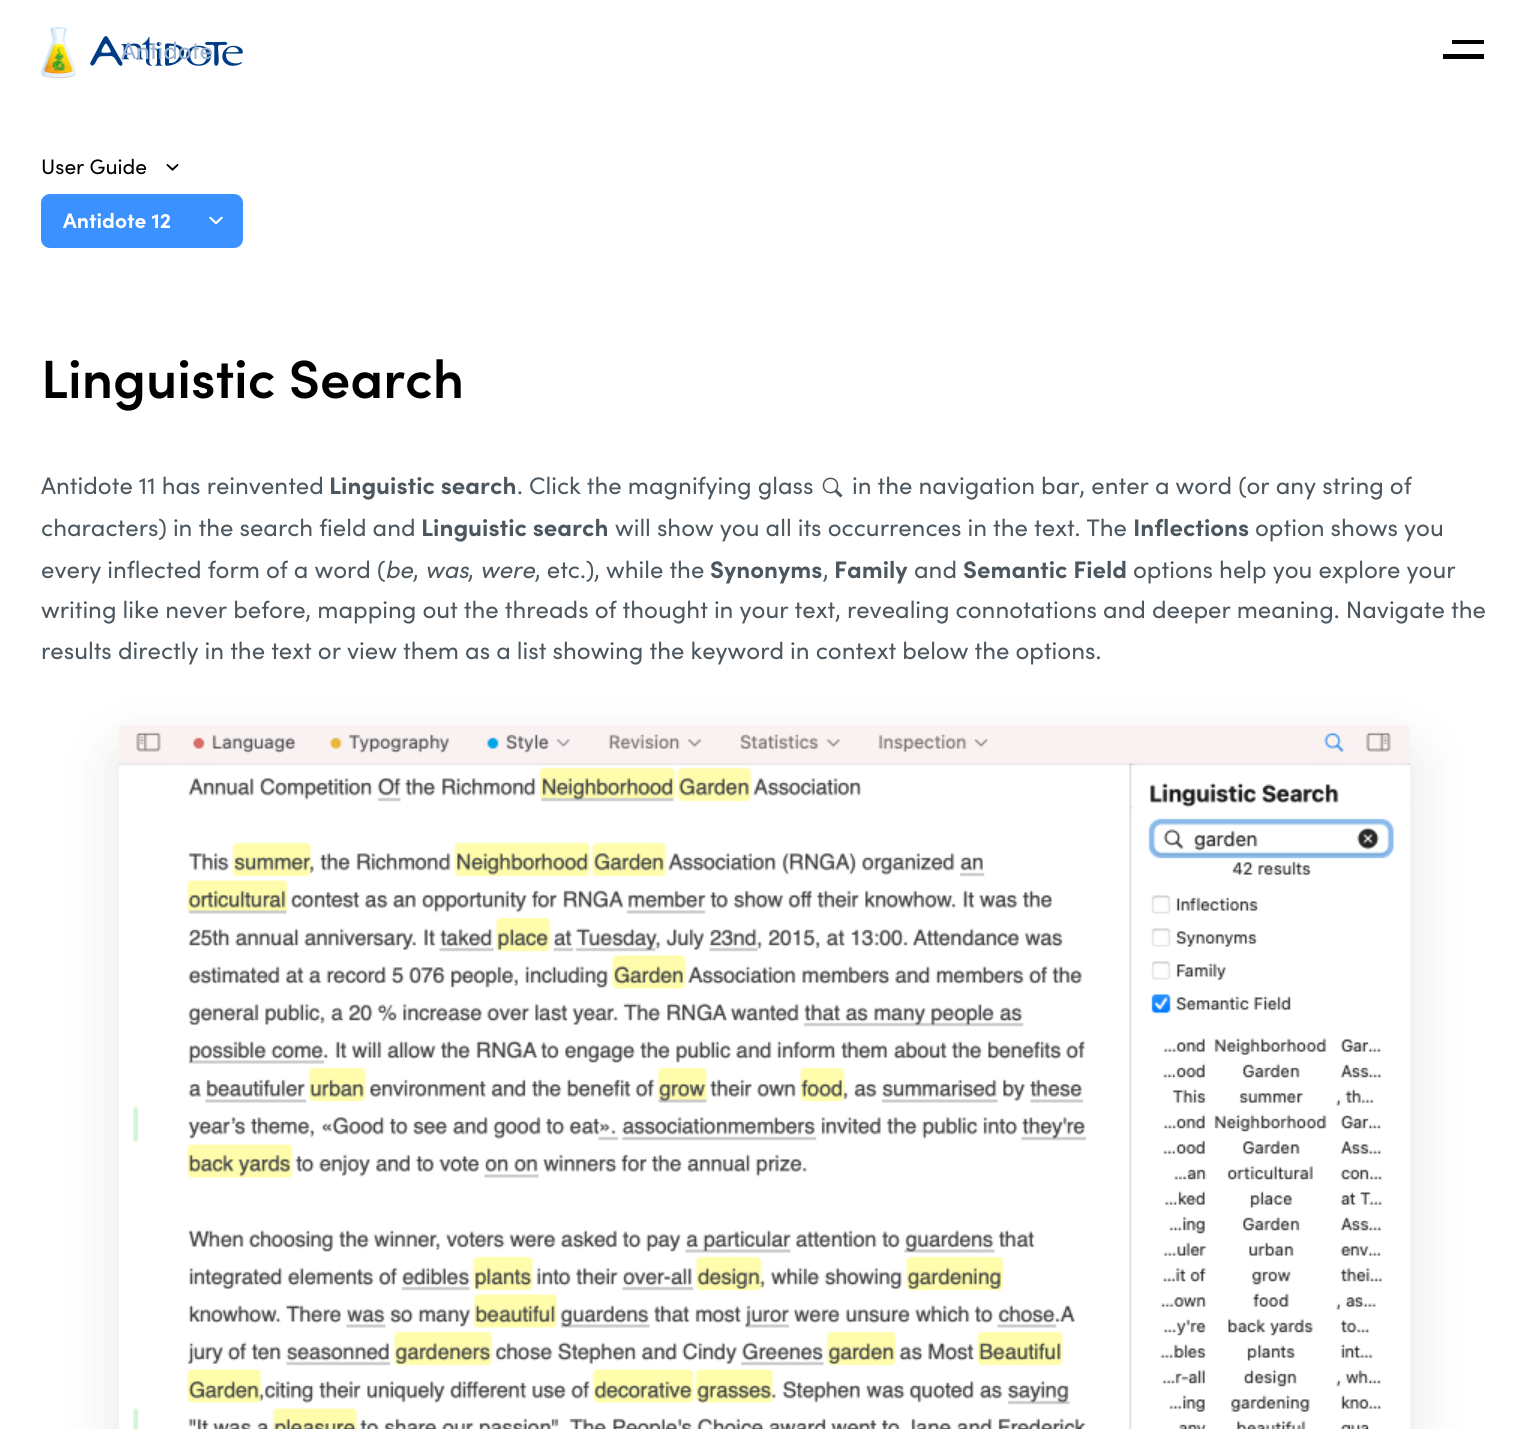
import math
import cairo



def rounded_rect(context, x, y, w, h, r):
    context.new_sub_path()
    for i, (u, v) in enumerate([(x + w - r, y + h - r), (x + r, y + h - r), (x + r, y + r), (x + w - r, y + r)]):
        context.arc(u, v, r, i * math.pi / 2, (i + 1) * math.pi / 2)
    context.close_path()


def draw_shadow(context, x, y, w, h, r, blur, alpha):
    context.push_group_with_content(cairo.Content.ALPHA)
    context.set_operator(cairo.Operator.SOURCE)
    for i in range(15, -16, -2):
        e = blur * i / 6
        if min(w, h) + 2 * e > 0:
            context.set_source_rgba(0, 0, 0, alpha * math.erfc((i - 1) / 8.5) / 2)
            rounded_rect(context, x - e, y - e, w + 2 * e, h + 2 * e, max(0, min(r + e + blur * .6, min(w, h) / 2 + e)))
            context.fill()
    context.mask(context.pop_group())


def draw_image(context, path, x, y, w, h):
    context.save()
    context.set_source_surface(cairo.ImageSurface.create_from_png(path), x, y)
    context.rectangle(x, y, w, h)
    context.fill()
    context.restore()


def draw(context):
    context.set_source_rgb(1, 1, 1)
    context.paint()
    draw_image(context, "images/1.png", 40, 27, 36, 52)
    draw_image(context, "images/2.png", 90, 36, 153, 30)
    context.set_source_rgb(0, 0, 0)
    context.new_path()
    context.move_to(1452, 40)
    context.line_to(1484, 40)
    context.line_to(1484, 44)
    context.line_to(1452, 44)
    context.close_path()
    context.move_to(1443, 54)
    context.line_to(1484, 54)
    context.line_to(1484, 59)
    context.line_to(1443, 59)
    context.close_path()
    context.fill()
    draw_image(context, "images/3.png", 166, 164, 13, 7)
    context.set_source_rgb(59 / 255, 145 / 255, 1)
    rounded_rect(context, 41, 194, 202, 54, 9)
    context.fill()
    draw_image(context, "images/4.png", 209, 216, 14, 9)
    context.new_path()
    context.move_to(837.5, 485.5)
    context.curve_to(837.5, 495, 823.5, 495, 823.5, 485.5)
    context.curve_to(823.5, 476, 837.5, 476, 837.5, 485.5)
    context.close_path()
    context.set_source_rgb(76 / 255, 87 / 255, 95 / 255)
    context.set_line_width(1.5)
    context.stroke()
    context.new_path()
    context.move_to(835.5, 490.5)
    context.line_to(841.5, 496.5)
    context.set_line_width(3)
    context.stroke()
    context.set_source_rgb(0, 0, 0)
    draw_shadow(context, 119, 752, 1291, 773, 6, 30, 0.1)
    draw_image(context, "images/5.png", 119, 725, 1291, 704)
    context.select_font_face("Sofia")
    context.set_font_size(24)
    context.set_source_rgb(157 / 255, 180 / 255, 208 / 255)
    context.move_to(121, 59)
    context.show_text("Antidote")
    context.set_font_size(21)
    context.set_source_rgb(0, 0, 0)
    context.move_to(41, 174)
    context.show_text("User Guide")
    context.select_font_face("Sofia", cairo.FontSlant.NORMAL, cairo.FontWeight.BOLD)
    context.set_source_rgb(1, 1, 1)
    context.move_to(63, 228)
    context.show_text("Antidote 12")
    context.select_font_face("Sofia SemiBold")
    context.set_font_size(54)
    context.set_source_rgb(0, 0, 0)
    context.move_to(41, 398)
    context.show_text("Linguistic Search")
    context.select_font_face("Sofia")
    context.set_font_size(24)
    context.set_source_rgb(76 / 255, 87 / 255, 95 / 255)
    context.move_to(41, 494)
    context.show_text("Antidote 11 has reinvented")
    context.select_font_face("Sofia", cairo.FontSlant.NORMAL, cairo.FontWeight.BOLD)
    context.move_to(329, 494)
    context.show_text("Linguistic search")
    context.select_font_face("Sofia")
    context.move_to(517, 494)
    context.show_text(". Click the magnifying glass")
    context.move_to(852, 494)
    context.show_text("in the navigation bar, enter a word (or any string of")
    context.move_to(41, 536)
    context.show_text("characters) in the search field and")
    context.select_font_face("Sofia", cairo.FontSlant.NORMAL, cairo.FontWeight.BOLD)
    context.move_to(421, 536)
    context.show_text("Linguistic search")
    context.select_font_face("Sofia")
    context.move_to(615, 536)
    context.show_text("will show you all its occurrences in the text. The")
    context.select_font_face("Sofia", cairo.FontSlant.NORMAL, cairo.FontWeight.BOLD)
    context.move_to(1133, 536)
    context.show_text("Inflections")
    context.select_font_face("Sofia")
    context.move_to(1255, 536)
    context.show_text("option shows you")
    context.move_to(41, 578)
    context.show_text("every inflected form of a word (")
    context.select_font_face("Sofia", cairo.FontSlant.ITALIC)
    context.move_to(385, 578)
    context.show_text("be")
    context.select_font_face("Sofia")
    context.move_to(413, 578)
    context.show_text(",")
    context.select_font_face("Sofia", cairo.FontSlant.ITALIC)
    context.move_to(425, 578)
    context.show_text("was")
    context.select_font_face("Sofia")
    context.move_to(468, 578)
    context.show_text(",")
    context.select_font_face("Sofia", cairo.FontSlant.ITALIC)
    context.move_to(480, 578)
    context.show_text("were")
    context.select_font_face("Sofia")
    context.move_to(535, 578)
    context.show_text(", etc.), while the")
    context.select_font_face("Sofia", cairo.FontSlant.NORMAL, cairo.FontWeight.BOLD)
    context.move_to(710, 578)
    context.show_text("Synonyms")
    context.select_font_face("Sofia")
    context.move_to(823, 578)
    context.show_text(",")
    context.select_font_face("Sofia", cairo.FontSlant.NORMAL, cairo.FontWeight.BOLD)
    context.move_to(834, 578)
    context.show_text("Family")
    context.select_font_face("Sofia")
    context.move_to(914, 578)
    context.show_text("and")
    context.select_font_face("Sofia", cairo.FontSlant.NORMAL, cairo.FontWeight.BOLD)
    context.move_to(963, 578)
    context.show_text("Semantic Field")
    context.select_font_face("Sofia")
    context.move_to(1133, 578)
    context.show_text("options help you explore your")
    context.move_to(41, 618)
    context.show_text("writing like never before, mapping out the threads of thought in your text, revealing connotations and deeper meaning. Navigate the")
    context.move_to(41, 659)
    context.show_text("results directly in the text or view them as a list showing the keyword in context below the options.")


surface = cairo.ImageSurface(cairo.Format.RGB24, 1527, 1429)
context = cairo.Context(surface)
options = cairo.FontOptions()
options.set_hint_metrics(cairo.HintMetrics.OFF)
options.set_hint_style(cairo.HintStyle.NONE)
context.set_font_options(options)
context.set_miter_limit(4)
draw(context)
surface.write_to_png("out.png")
